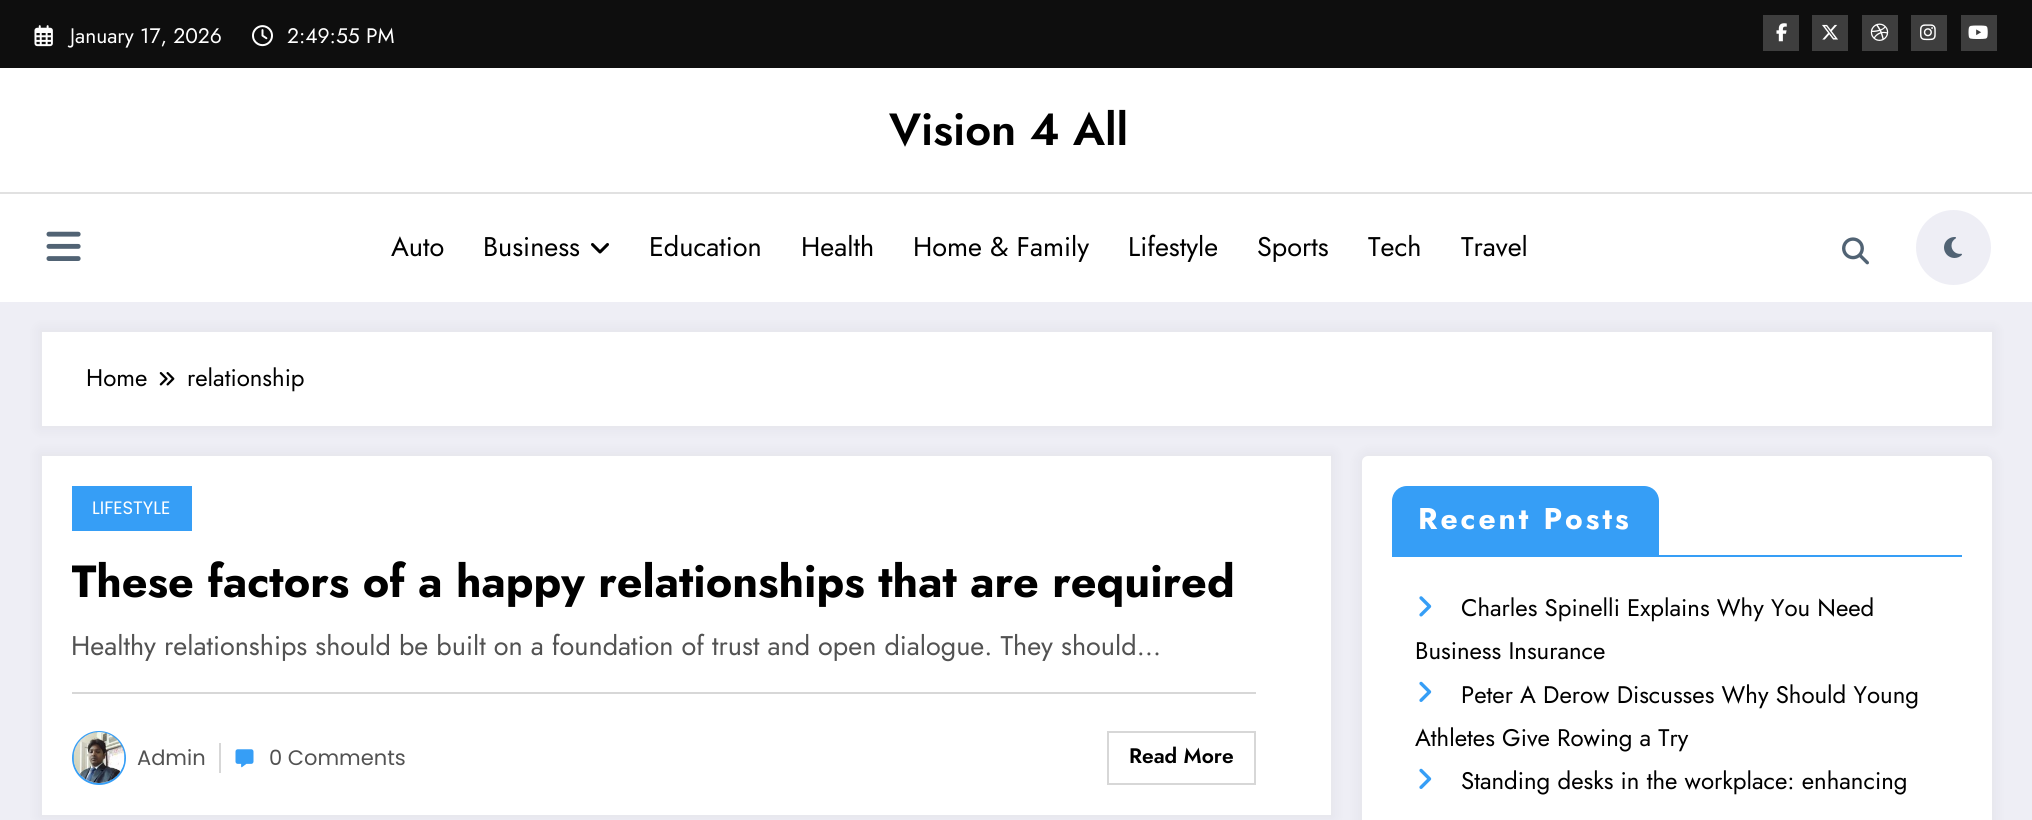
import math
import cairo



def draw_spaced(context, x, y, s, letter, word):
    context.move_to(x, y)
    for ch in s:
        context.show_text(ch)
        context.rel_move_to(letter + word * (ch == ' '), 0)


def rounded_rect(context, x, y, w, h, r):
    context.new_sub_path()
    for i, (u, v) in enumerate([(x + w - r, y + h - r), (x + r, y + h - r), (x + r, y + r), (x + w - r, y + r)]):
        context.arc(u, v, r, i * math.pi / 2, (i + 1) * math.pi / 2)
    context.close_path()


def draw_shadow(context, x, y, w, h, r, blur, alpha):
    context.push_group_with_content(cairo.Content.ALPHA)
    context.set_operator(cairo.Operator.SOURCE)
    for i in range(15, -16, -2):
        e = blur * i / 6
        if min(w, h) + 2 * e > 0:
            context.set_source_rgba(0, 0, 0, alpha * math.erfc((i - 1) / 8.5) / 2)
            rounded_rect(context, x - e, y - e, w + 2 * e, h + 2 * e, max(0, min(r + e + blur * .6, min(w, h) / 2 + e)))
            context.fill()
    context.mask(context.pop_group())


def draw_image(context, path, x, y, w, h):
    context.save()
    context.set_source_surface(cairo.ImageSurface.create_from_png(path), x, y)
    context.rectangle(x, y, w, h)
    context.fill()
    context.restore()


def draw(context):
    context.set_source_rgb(238 / 255, 238 / 255, 245 / 255)
    context.paint()
    context.set_source_rgb(14 / 255, 14 / 255, 14 / 255)
    context.rectangle(0, 0, 2032, 68)
    context.fill()
    draw_image(context, "images/1.png", 34, 25, 19, 22)
    draw_image(context, "images/2.png", 252, 25, 21, 22)
    context.set_source_rgb(62 / 255, 62 / 255, 62 / 255)
    context.rectangle(1763, 15, 36, 36)
    context.fill()
    draw_image(context, "images/3.png", 1776, 23, 11, 19)
    context.rectangle(1812, 15, 36, 36)
    context.fill()
    draw_image(context, "images/4.png", 1822, 24, 16, 16)
    context.rectangle(1862, 15, 36, 36)
    context.fill()
    draw_image(context, "images/5.png", 1870, 23, 19, 18)
    context.rectangle(1911, 15, 36, 36)
    context.fill()
    draw_image(context, "images/6.png", 1920, 24, 16, 17)
    context.rectangle(1961, 15, 36, 36)
    context.fill()
    draw_image(context, "images/7.png", 1968, 25, 20, 14)
    context.set_source_rgb(1, 1, 1)
    context.rectangle(0, 68, 2032, 234)
    context.fill()
    context.set_source_rgb(225 / 255, 225 / 255, 225 / 255)
    context.rectangle(0, 192, 2032, 2)
    context.fill()
    draw_image(context, "images/8.png", 46, 231, 35, 30)
    draw_image(context, "images/9.png", 591, 243, 18, 11)
    draw_image(context, "images/10.png", 1842, 237, 27, 28)
    context.set_source_rgb(238 / 255, 238 / 255, 245 / 255)
    context.arc(1953.5, 247.5, 37.5, 0, 2 * math.pi)
    context.fill()
    draw_image(context, "images/11.png", 1944, 237, 18, 21)
    context.set_source_rgb(23 / 255, 23 / 255, 35 / 255)
    draw_shadow(context, 39, 329, 1956, 100, 0, 6, 0.05)
    context.set_source_rgb(1, 1, 1)
    context.rectangle(42, 332, 1950, 94)
    context.fill()
    draw_image(context, "images/12.png", 159, 372, 16, 14)
    context.set_source_rgb(23 / 255, 23 / 255, 35 / 255)
    draw_shadow(context, 39, 453, 1295, 365, 0, 6, 0.05)
    context.set_source_rgb(1, 1, 1)
    context.rectangle(42, 456, 1289, 359)
    context.fill()
    context.set_source_rgb(54 / 255, 158 / 255, 246 / 255)
    context.rectangle(72, 486, 120, 45)
    context.fill()
    context.set_source_rgb(215 / 255, 215 / 255, 215 / 255)
    context.rectangle(72, 692, 1184, 2)
    context.fill()
    context.arc(99, 758, 26, 0, 2 * math.pi)
    context.set_source_rgb(54 / 255, 158 / 255, 246 / 255)
    context.stroke()
    draw_image(context, "images/13.png", 73, 732, 52, 51)
    context.set_source_rgb(215 / 255, 215 / 255, 215 / 255)
    context.rectangle(219, 743, 2, 30)
    context.fill()
    draw_image(context, "images/14.png", 235, 749, 19, 19)
    context.rectangle(1108, 732, 147, 52)
    context.stroke()
    context.set_source_rgb(23 / 255, 23 / 255, 35 / 255)
    draw_shadow(context, 1359, 453, 636, 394, 9, 6, 0.05)
    context.set_source_rgb(1, 1, 1)
    rounded_rect(context, 1362, 456, 630, 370, 6)
    context.fill()
    context.set_source_rgb(54 / 255, 158 / 255, 246 / 255)
    context.rectangle(1392, 555, 570, 2)
    context.fill()
    context.new_path()
    context.move_to(1407, 486)
    context.line_to(1644, 486)
    context.curve_to(1652.5, 486, 1659, 492.5, 1659, 501)
    context.line_to(1659, 555)
    context.line_to(1392, 555)
    context.line_to(1392, 501)
    context.curve_to(1392, 492.5, 1398.5, 486, 1407, 486)
    context.close_path()
    context.fill()
    draw_image(context, "images/15.png", 1419, 596, 13, 21)
    draw_image(context, "images/16.png", 1419, 681, 13, 21)
    draw_image(context, "images/16.png", 1419, 768, 13, 21)
    context.select_font_face("Jost")
    context.set_font_size(21)
    context.set_source_rgb(1, 1, 1)
    context.move_to(70, 43)
    context.show_text("January 17, 2026")
    context.move_to(287, 43)
    context.show_text("2:49:55 PM")
    context.select_font_face("Jost SemiBold")
    context.set_font_size(45)
    context.set_source_rgb(0, 0, 0)
    context.move_to(889, 145)
    context.show_text("Vision 4 All")
    context.select_font_face("Jost")
    context.set_font_size(27)
    context.move_to(391, 256)
    context.show_text("Auto")
    context.move_to(483, 256)
    context.show_text("Business")
    context.move_to(649, 256)
    context.show_text("Education")
    context.move_to(801, 256)
    context.show_text("Health")
    context.move_to(913, 256)
    context.show_text("Home & Family")
    context.move_to(1128, 256)
    context.show_text("Lifestyle")
    context.move_to(1257, 256)
    context.show_text("Sports")
    context.move_to(1368, 256)
    context.show_text("Tech")
    context.move_to(1461, 256)
    context.show_text("Travel")
    context.set_font_size(24)
    context.move_to(86, 386)
    context.show_text("Home")
    context.move_to(187, 386)
    context.show_text("relationship")
    context.select_font_face("Poppins")
    context.set_font_size(18)
    context.set_source_rgb(1, 1, 1)
    context.move_to(92, 514)
    context.show_text("LIFESTYLE")
    context.save()
    context.rectangle(72, 552, 1214, 59)
    context.clip()
    context.select_font_face("Jost", cairo.FontSlant.NORMAL, cairo.FontWeight.BOLD)
    context.set_font_size(45)
    context.set_source_rgb(0, 0, 0)
    context.move_to(71, 597)
    context.show_text("These factors of a happy relationships that are required")
    context.restore()
    context.select_font_face("Jost")
    context.set_font_size(27)
    context.set_source_rgb(82 / 255, 82 / 255, 82 / 255)
    context.move_to(71, 655)
    context.show_text("Healthy relationships should be built on a foundation of trust and open dialogue. They should…")
    context.select_font_face("Poppins")
    context.set_font_size(21)
    context.move_to(137, 765)
    context.show_text("Admin")
    context.move_to(269, 765)
    context.show_text("0 Comments")
    context.select_font_face("Jost SemiBold")
    context.set_source_rgb(0, 0, 0)
    context.move_to(1129, 763)
    context.show_text("Read More")
    context.select_font_face("Jost", cairo.FontSlant.NORMAL, cairo.FontWeight.BOLD)
    context.set_font_size(30)
    context.set_source_rgb(1, 1, 1)
    draw_spaced(context, 1418, 529, "Recent Posts", 3, 0)
    context.select_font_face("Jost")
    context.set_font_size(24)
    context.set_source_rgb(0, 0, 0)
    context.move_to(1461, 616)
    context.show_text("Charles Spinelli Explains Why You Need")
    context.move_to(1415, 659)
    context.show_text("Business Insurance")
    context.move_to(1461, 703)
    context.show_text("Peter A Derow Discusses Why Should Young")
    context.move_to(1415, 746)
    context.show_text("Athletes Give Rowing a Try")
    context.move_to(1461, 789)
    context.show_text("Standing desks in the workplace: enhancing")


surface = cairo.ImageSurface(cairo.Format.RGB24, 2032, 820)
context = cairo.Context(surface)
options = cairo.FontOptions()
options.set_hint_metrics(cairo.HintMetrics.OFF)
options.set_hint_style(cairo.HintStyle.NONE)
context.set_font_options(options)
context.set_miter_limit(4)
draw(context)
surface.write_to_png("out.png")
